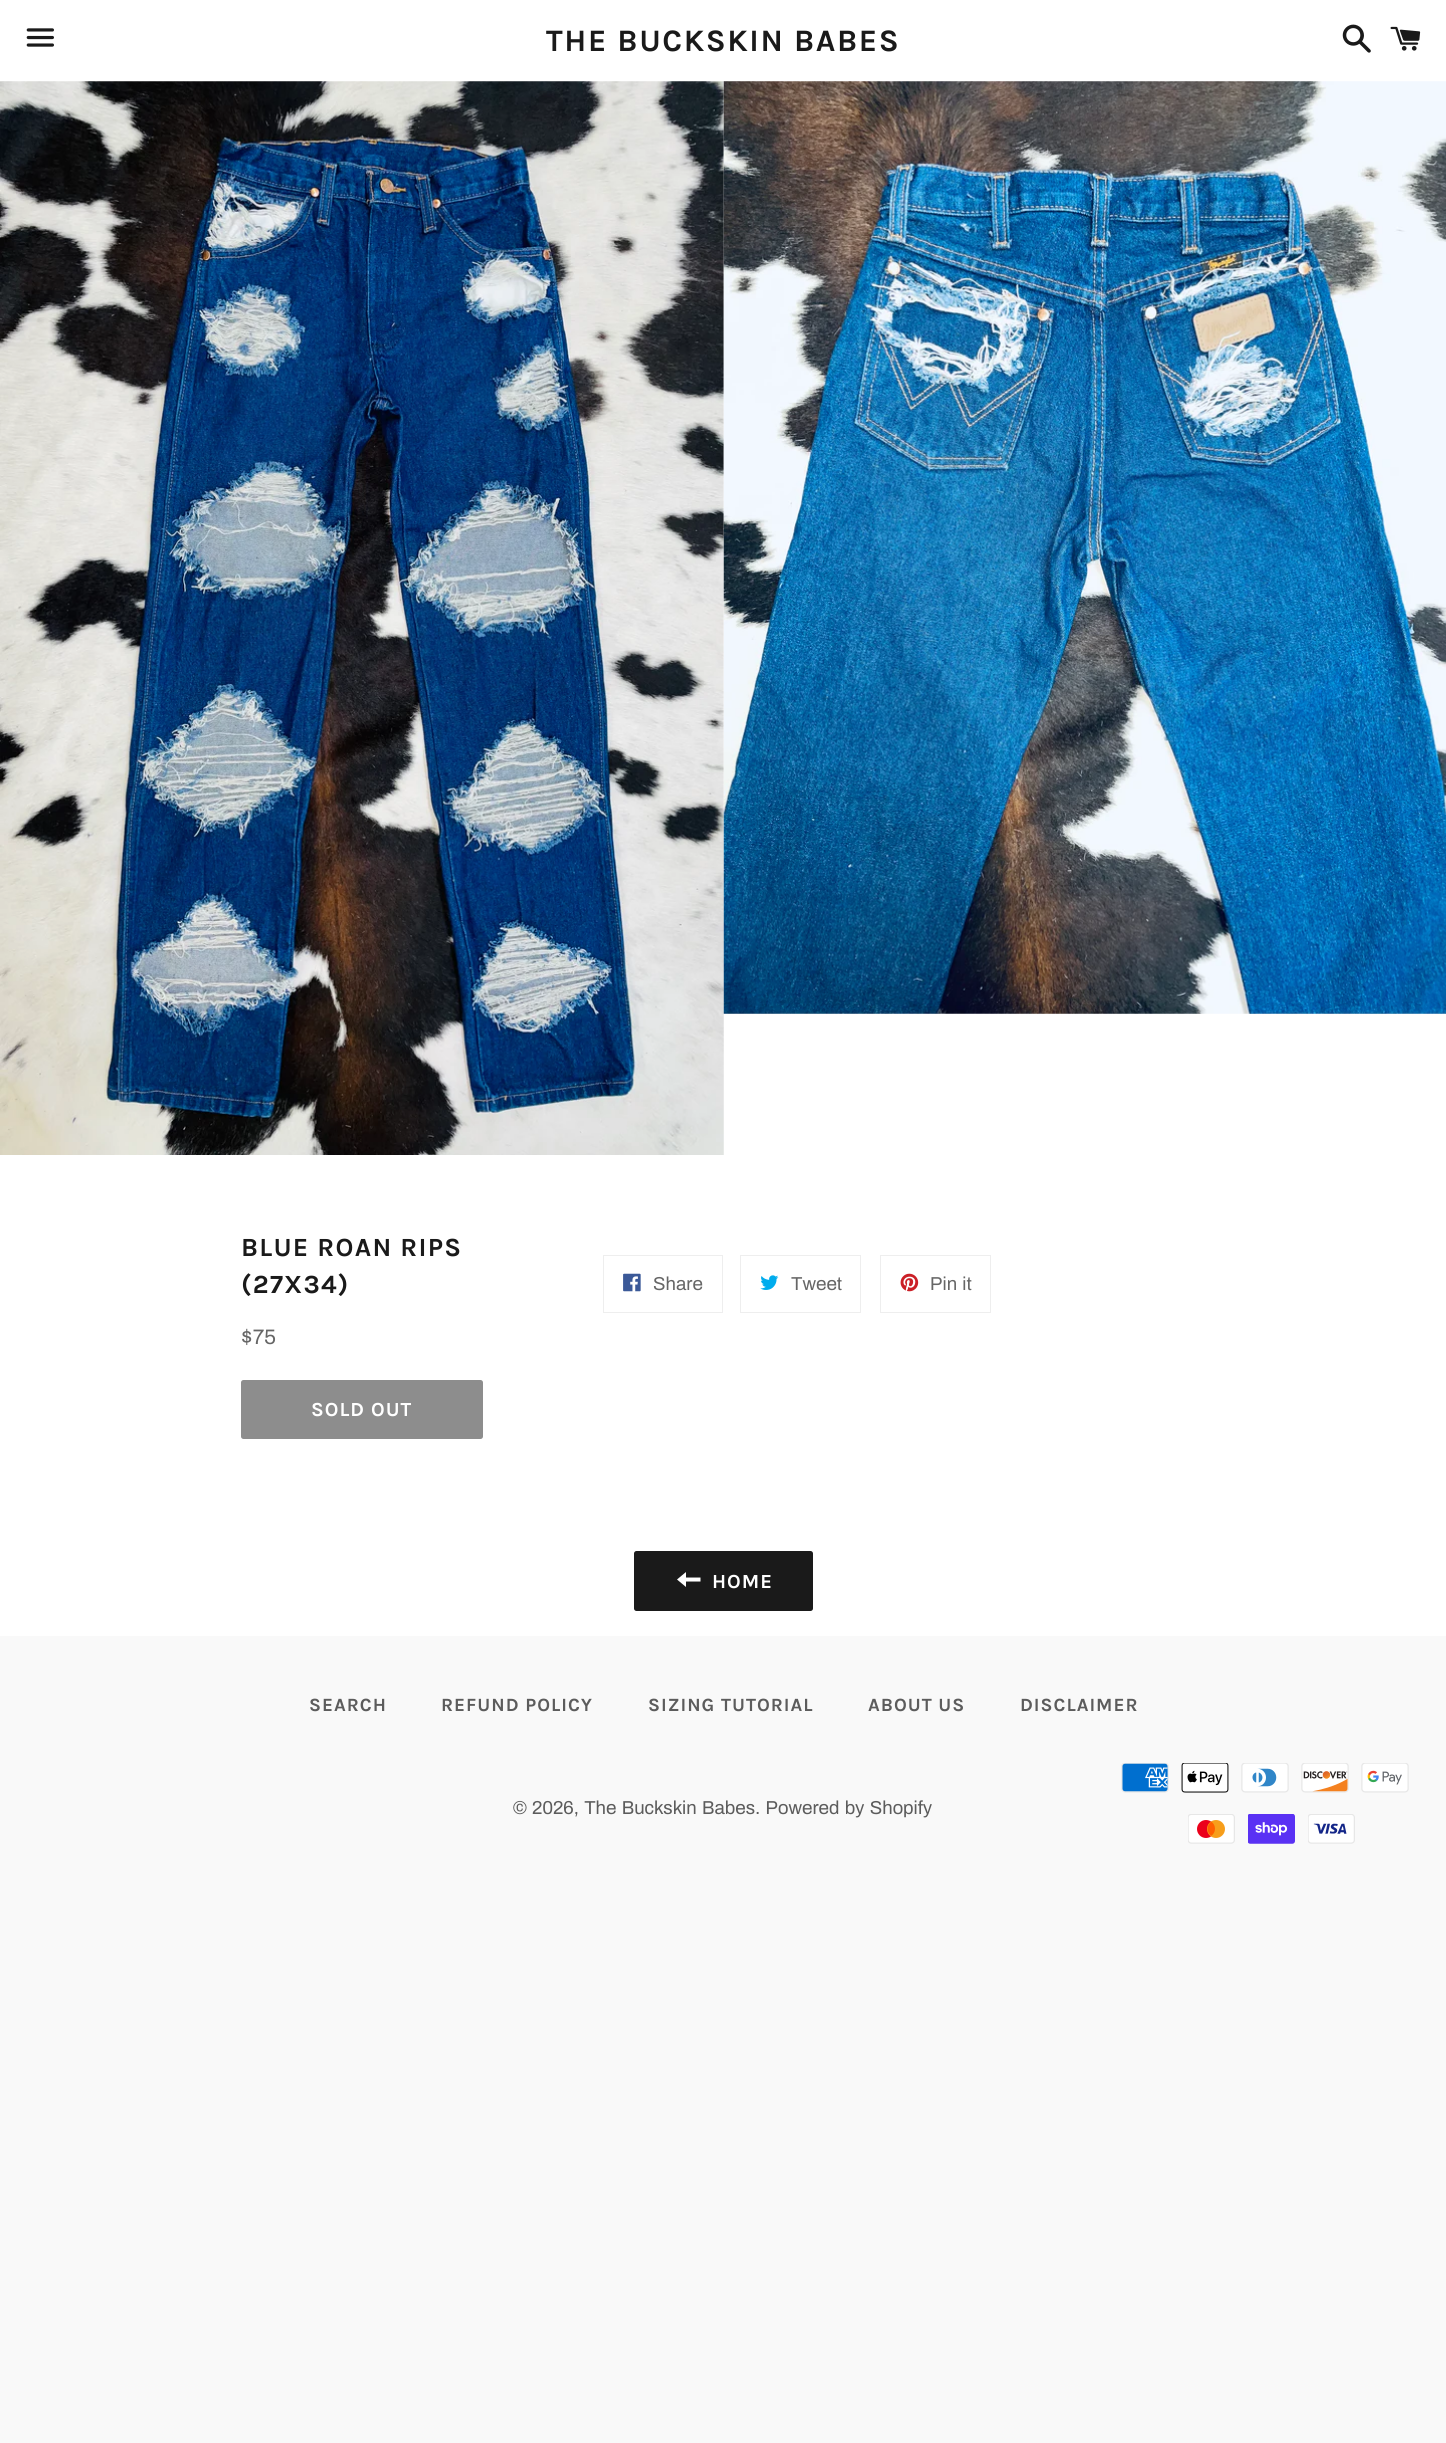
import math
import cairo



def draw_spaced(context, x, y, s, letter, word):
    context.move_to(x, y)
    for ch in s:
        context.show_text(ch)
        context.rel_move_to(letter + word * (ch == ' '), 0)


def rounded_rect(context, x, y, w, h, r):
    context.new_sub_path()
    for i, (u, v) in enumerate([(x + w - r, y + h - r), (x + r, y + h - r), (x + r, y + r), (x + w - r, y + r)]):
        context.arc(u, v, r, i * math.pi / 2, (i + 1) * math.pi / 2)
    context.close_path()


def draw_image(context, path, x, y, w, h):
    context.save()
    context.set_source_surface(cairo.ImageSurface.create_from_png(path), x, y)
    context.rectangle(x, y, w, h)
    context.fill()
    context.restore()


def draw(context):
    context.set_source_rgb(249 / 255, 249 / 255, 249 / 255)
    context.paint()
    context.set_source_rgb(1, 1, 1)
    context.rectangle(0, 0, 1446, 1636)
    context.fill()
    draw_image(context, "images/1.png", 26, 28, 28, 19)
    draw_image(context, "images/2.png", 1342, 24, 29, 29)
    draw_image(context, "images/3.png", 1390, 26, 31, 25)
    draw_image(context, "images/4.png", 0, 81, 724, 1074)
    draw_image(context, "images/5.png", 723, 81, 723, 933)
    context.set_source_rgb(141 / 255, 141 / 255, 141 / 255)
    rounded_rect(context, 241, 1380, 242, 59, 2.5)
    context.fill()
    context.rectangle(603.5, 1255.5, 119, 57)
    context.set_source_rgb(238 / 255, 238 / 255, 238 / 255)
    context.set_line_width(1)
    context.stroke()
    draw_image(context, "images/6.png", 623, 1273, 18, 19)
    context.rectangle(740.5, 1255.5, 120, 57)
    context.stroke()
    draw_image(context, "images/7.png", 760, 1275, 19, 15)
    context.rectangle(880.5, 1255.5, 110, 57)
    context.stroke()
    draw_image(context, "images/8.png", 900, 1273, 19, 19)
    context.set_source_rgb(26 / 255, 26 / 255, 26 / 255)
    rounded_rect(context, 634, 1551, 179, 60, 2.5)
    context.fill()
    context.set_source_rgb(1, 1, 1)
    context.new_path()
    context.move_to(686, 1577.5)
    context.line_to(686, 1572)
    context.line_to(677, 1579.5)
    context.line_to(686, 1587)
    context.line_to(686, 1581.5)
    context.line_to(700.5, 1581.5)
    context.line_to(700.5, 1577.5)
    context.close_path()
    context.fill()
    draw_image(context, "images/9.png", 1121, 1763, 48, 30)
    draw_image(context, "images/10.png", 1181, 1763, 48, 30)
    draw_image(context, "images/11.png", 1241, 1763, 48, 30)
    draw_image(context, "images/12.png", 1301, 1763, 48, 30)
    draw_image(context, "images/13.png", 1361, 1763, 48, 30)
    draw_image(context, "images/14.png", 1188, 1814, 47, 30)
    draw_image(context, "images/15.png", 1248, 1814, 47, 30)
    draw_image(context, "images/16.png", 1308, 1814, 47, 30)
    context.select_font_face("Karla", cairo.FontSlant.NORMAL, cairo.FontWeight.BOLD)
    context.set_font_size(31.25)
    context.set_source_rgb(26 / 255, 26 / 255, 26 / 255)
    draw_spaced(context, 546, 51, "THE BUCKSKIN BABES", 1.6, 0)
    context.set_font_size(26.25)
    draw_spaced(context, 241, 1256, "BLUE ROAN RIPS", 1.25, 0)
    draw_spaced(context, 241, 1293, "(27X34)", 1.25, 0)
    context.select_font_face("Archivo")
    context.set_font_size(21)
    context.set_source_rgb(102 / 255, 102 / 255, 102 / 255)
    context.move_to(241, 1344)
    context.show_text("$75")
    context.select_font_face("Karla", cairo.FontSlant.NORMAL, cairo.FontWeight.BOLD)
    context.set_font_size(20)
    context.set_source_rgb(1, 1, 1)
    draw_spaced(context, 311, 1416, "SOLD OUT", 1, 0)
    context.select_font_face("Archivo")
    context.set_font_size(18.75)
    context.set_source_rgb(102 / 255, 102 / 255, 102 / 255)
    context.move_to(653, 1290)
    context.show_text("Share")
    context.move_to(791, 1290)
    context.show_text("Tweet")
    context.move_to(930, 1290)
    context.show_text("Pin it")
    context.select_font_face("Karla", cairo.FontSlant.NORMAL, cairo.FontWeight.BOLD)
    context.set_font_size(20)
    context.set_source_rgb(1, 1, 1)
    draw_spaced(context, 712, 1588, "HOME", 1, 0)
    context.set_font_size(18.75)
    context.set_source_rgb(92 / 255, 92 / 255, 92 / 255)
    draw_spaced(context, 309, 1711, "SEARCH", 1, 0)
    draw_spaced(context, 441, 1711, "REFUND POLICY", 1, 0)
    draw_spaced(context, 648, 1711, "SIZING TUTORIAL", 1, 0)
    draw_spaced(context, 868, 1711, "ABOUT US", 1, 0)
    draw_spaced(context, 1020, 1711, "DISCLAIMER", 1, 0)
    context.select_font_face("Archivo")
    context.move_to(513, 1814)
    context.show_text("© 2026, The Buckskin Babes. Powered by Shopify")


surface = cairo.ImageSurface(cairo.Format.RGB24, 1446, 2443)
context = cairo.Context(surface)
options = cairo.FontOptions()
options.set_hint_metrics(cairo.HintMetrics.OFF)
options.set_hint_style(cairo.HintStyle.NONE)
context.set_font_options(options)
context.set_miter_limit(4)
draw(context)
surface.write_to_png("out.png")
